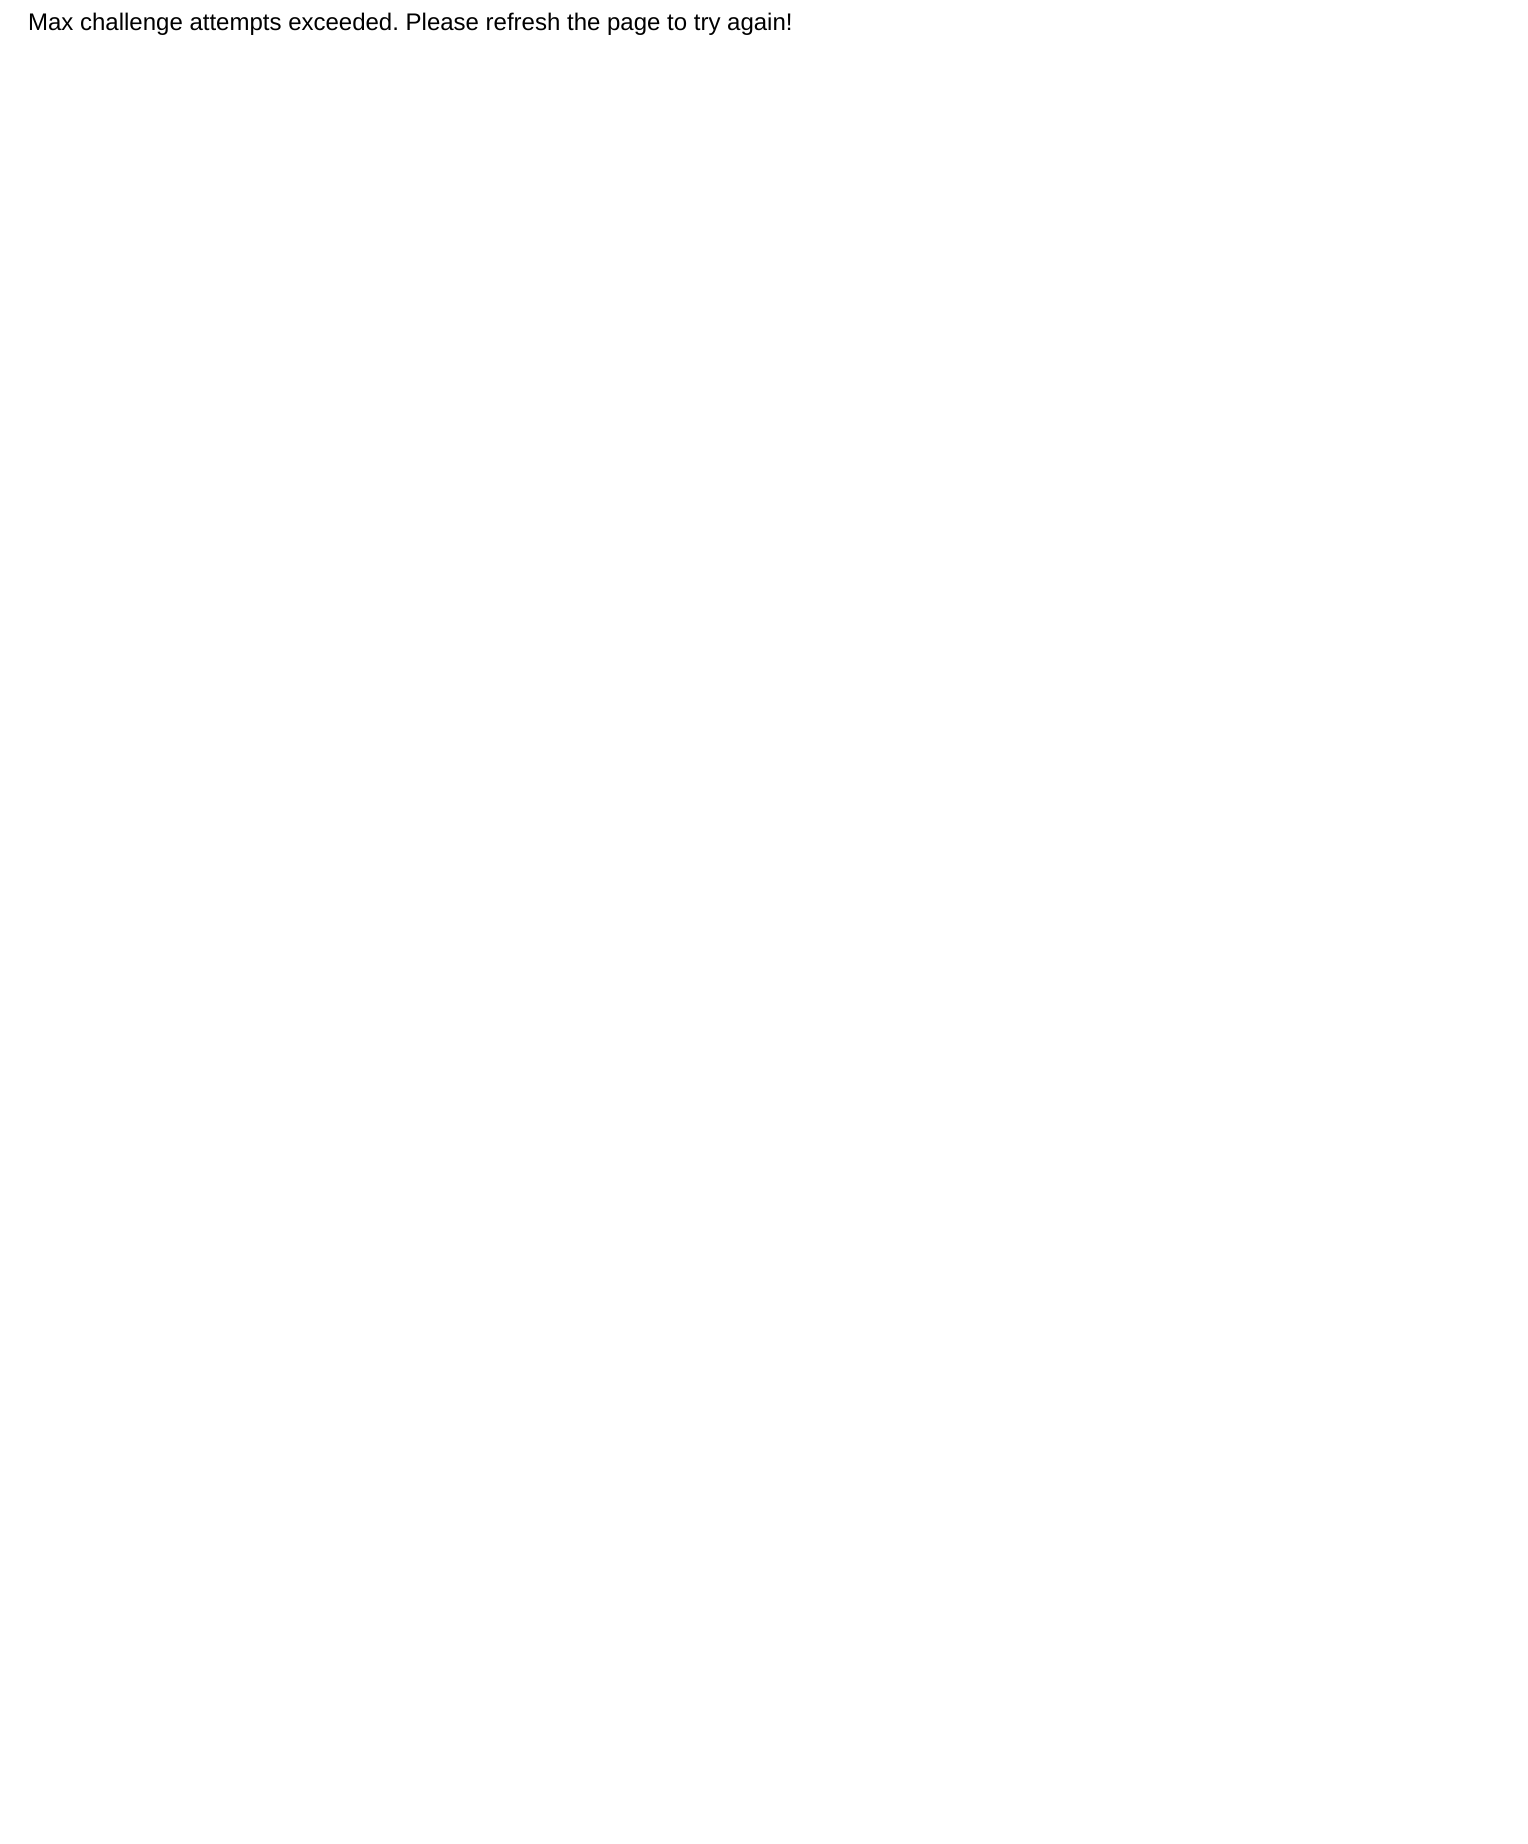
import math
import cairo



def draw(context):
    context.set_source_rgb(1, 1, 1)
    context.paint()
    context.select_font_face("Liberation Sans")
    context.set_font_size(24)
    context.set_source_rgb(0, 0, 0)
    context.move_to(28, 30)
    context.show_text("Max challenge attempts exceeded. Please refresh the page to try again!")


surface = cairo.ImageSurface(cairo.Format.RGB24, 1528, 1844)
context = cairo.Context(surface)
options = cairo.FontOptions()
options.set_hint_metrics(cairo.HintMetrics.OFF)
options.set_hint_style(cairo.HintStyle.NONE)
context.set_font_options(options)
context.set_miter_limit(4)
draw(context)
surface.write_to_png("out.png")
